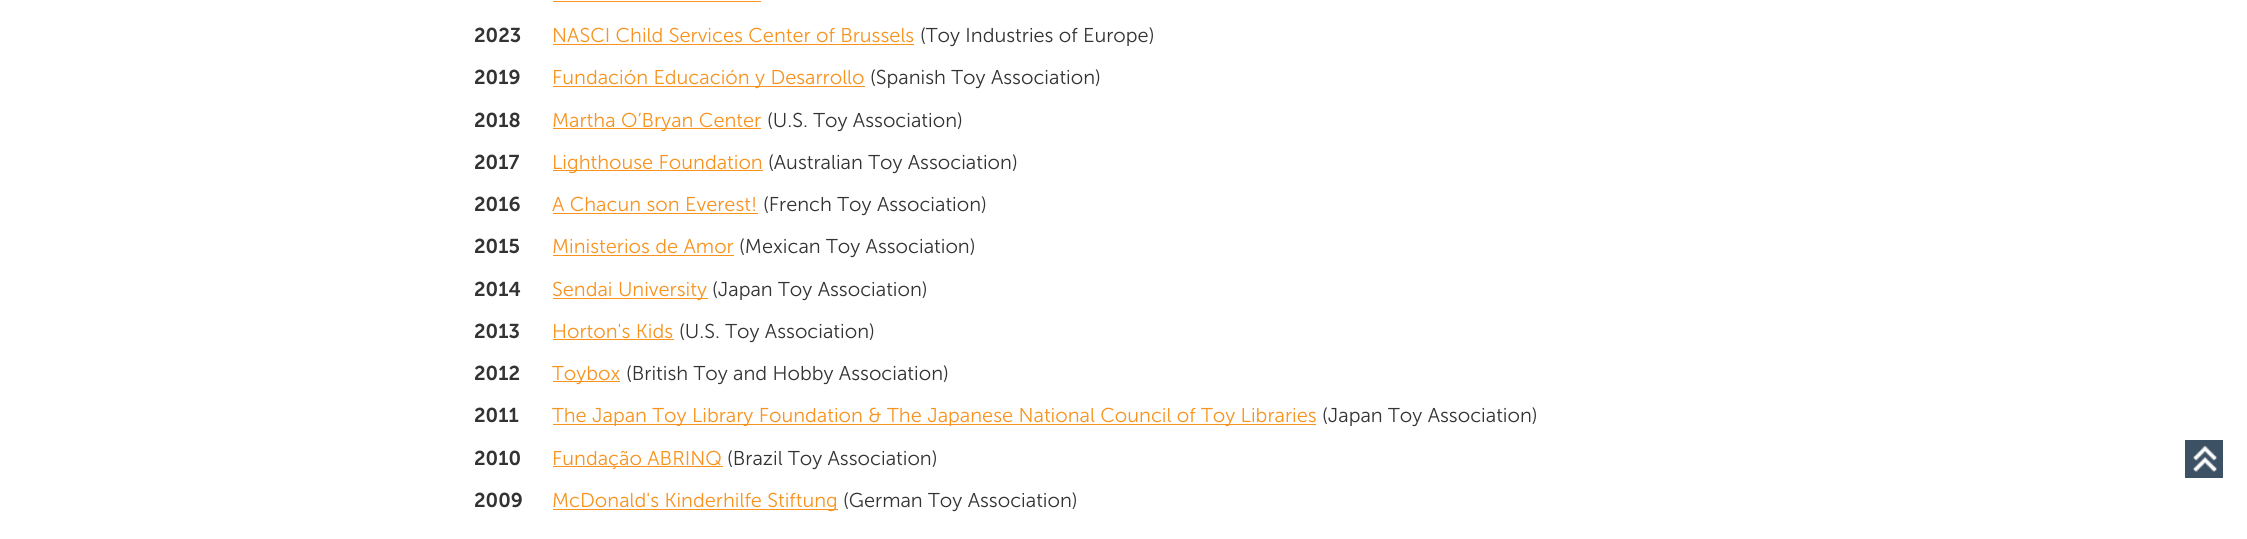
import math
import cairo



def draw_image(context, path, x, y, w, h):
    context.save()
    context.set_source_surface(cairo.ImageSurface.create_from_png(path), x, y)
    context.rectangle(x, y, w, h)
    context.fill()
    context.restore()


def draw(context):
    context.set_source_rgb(1, 1, 1)
    context.paint()
    context.set_source_rgb(247 / 255, 147 / 255, 30 / 255)
    context.rectangle(553, 1, 208, 1)
    context.fill()
    context.rectangle(553, 44, 361, 1)
    context.fill()
    context.rectangle(553, 86, 312, 1)
    context.fill()
    context.rectangle(553, 128, 208, 1)
    context.fill()
    context.rectangle(553, 170, 210, 1)
    context.fill()
    context.rectangle(553, 213, 205, 1)
    context.fill()
    context.rectangle(553, 255, 181, 1)
    context.fill()
    context.rectangle(553, 298, 155, 1)
    context.fill()
    context.rectangle(553, 339, 121, 1)
    context.fill()
    context.rectangle(553, 381, 67, 1)
    context.fill()
    context.rectangle(553, 424, 763, 1)
    context.fill()
    context.rectangle(553, 466, 170, 1)
    context.fill()
    context.rectangle(553, 509, 285, 1)
    context.fill()
    context.set_source_rgb(61 / 255, 81 / 255, 101 / 255)
    context.rectangle(2185, 440, 38, 38)
    context.fill()
    draw_image(context, "images/1.png", 2193, 446, 24, 26)
    context.select_font_face("Museo Sans SemiBold")
    context.set_font_size(20)
    context.set_source_rgb(51 / 255, 51 / 255, 51 / 255)
    context.move_to(474, 42)
    context.show_text("2023")
    context.select_font_face("Museo Sans Light")
    context.set_source_rgb(247 / 255, 147 / 255, 30 / 255)
    context.move_to(552, 42)
    context.show_text("NASCI Child Services Center of Brussels")
    context.set_source_rgb(51 / 255, 51 / 255, 51 / 255)
    context.move_to(920, 42)
    context.show_text("(Toy Industries of Europe)")
    context.select_font_face("Museo Sans SemiBold")
    context.move_to(474, 84)
    context.show_text("2019")
    context.select_font_face("Museo Sans Light")
    context.set_source_rgb(247 / 255, 147 / 255, 30 / 255)
    context.move_to(552, 84)
    context.show_text("Fundación Educación y Desarrollo")
    context.set_source_rgb(51 / 255, 51 / 255, 51 / 255)
    context.move_to(870, 84)
    context.show_text("(Spanish Toy Association)")
    context.select_font_face("Museo Sans SemiBold")
    context.move_to(474, 127)
    context.show_text("2018")
    context.select_font_face("Museo Sans Light")
    context.set_source_rgb(247 / 255, 147 / 255, 30 / 255)
    context.move_to(552, 127)
    context.show_text("Martha O’Bryan Center")
    context.set_source_rgb(51 / 255, 51 / 255, 51 / 255)
    context.move_to(767, 127)
    context.show_text("(U.S. Toy Association)")
    context.select_font_face("Museo Sans SemiBold")
    context.move_to(474, 169)
    context.show_text("2017")
    context.select_font_face("Museo Sans Light")
    context.set_source_rgb(247 / 255, 147 / 255, 30 / 255)
    context.move_to(552, 169)
    context.show_text("Lighthouse Foundation")
    context.set_source_rgb(51 / 255, 51 / 255, 51 / 255)
    context.move_to(768, 169)
    context.show_text("(Australian Toy Association)")
    context.select_font_face("Museo Sans SemiBold")
    context.move_to(474, 211)
    context.show_text("2016")
    context.select_font_face("Museo Sans Light")
    context.set_source_rgb(247 / 255, 147 / 255, 30 / 255)
    context.move_to(552, 211)
    context.show_text("A Chacun son Everest!")
    context.set_source_rgb(51 / 255, 51 / 255, 51 / 255)
    context.move_to(763, 211)
    context.show_text("(French Toy Association)")
    context.select_font_face("Museo Sans SemiBold")
    context.move_to(474, 253)
    context.show_text("2015")
    context.select_font_face("Museo Sans Light")
    context.set_source_rgb(247 / 255, 147 / 255, 30 / 255)
    context.move_to(552, 253)
    context.show_text("Ministerios de Amor")
    context.set_source_rgb(51 / 255, 51 / 255, 51 / 255)
    context.move_to(739, 253)
    context.show_text("(Mexican Toy Association)")
    context.select_font_face("Museo Sans SemiBold")
    context.move_to(474, 296)
    context.show_text("2014")
    context.select_font_face("Museo Sans Light")
    context.set_source_rgb(247 / 255, 147 / 255, 30 / 255)
    context.move_to(552, 296)
    context.show_text("Sendai University")
    context.set_source_rgb(51 / 255, 51 / 255, 51 / 255)
    context.move_to(712, 296)
    context.show_text("(Japan Toy Association)")
    context.select_font_face("Museo Sans SemiBold")
    context.move_to(474, 338)
    context.show_text("2013")
    context.select_font_face("Museo Sans Light")
    context.set_source_rgb(247 / 255, 147 / 255, 30 / 255)
    context.move_to(552, 338)
    context.show_text("Horton's Kids")
    context.set_source_rgb(51 / 255, 51 / 255, 51 / 255)
    context.move_to(679, 338)
    context.show_text("(U.S. Toy Association)")
    context.select_font_face("Museo Sans SemiBold")
    context.move_to(474, 380)
    context.show_text("2012")
    context.select_font_face("Museo Sans Light")
    context.set_source_rgb(247 / 255, 147 / 255, 30 / 255)
    context.move_to(552, 380)
    context.show_text("Toybox")
    context.set_source_rgb(51 / 255, 51 / 255, 51 / 255)
    context.move_to(626, 380)
    context.show_text("(British Toy and Hobby Association)")
    context.select_font_face("Museo Sans SemiBold")
    context.move_to(474, 422)
    context.show_text("2011")
    context.select_font_face("Museo Sans Light")
    context.set_source_rgb(247 / 255, 147 / 255, 30 / 255)
    context.move_to(552, 422)
    context.show_text("The Japan Toy Library Foundation & The Japanese National Council of Toy Libraries")
    context.set_source_rgb(51 / 255, 51 / 255, 51 / 255)
    context.move_to(1322, 422)
    context.show_text("(Japan Toy Association)")
    context.select_font_face("Museo Sans SemiBold")
    context.move_to(474, 465)
    context.show_text("2010")
    context.select_font_face("Museo Sans Light")
    context.set_source_rgb(247 / 255, 147 / 255, 30 / 255)
    context.move_to(552, 465)
    context.show_text("Fundação ABRINQ")
    context.set_source_rgb(51 / 255, 51 / 255, 51 / 255)
    context.move_to(727, 465)
    context.show_text("(Brazil Toy Association)")
    context.select_font_face("Museo Sans SemiBold")
    context.move_to(474, 507)
    context.show_text("2009")
    context.select_font_face("Museo Sans Light")
    context.set_source_rgb(247 / 255, 147 / 255, 30 / 255)
    context.move_to(552, 507)
    context.show_text("McDonald's Kinderhilfe Stiftung")
    context.set_source_rgb(51 / 255, 51 / 255, 51 / 255)
    context.move_to(843, 507)
    context.show_text("(German Toy Association)")


surface = cairo.ImageSurface(cairo.Format.RGB24, 2247, 539)
context = cairo.Context(surface)
options = cairo.FontOptions()
options.set_hint_metrics(cairo.HintMetrics.OFF)
options.set_hint_style(cairo.HintStyle.NONE)
context.set_font_options(options)
context.set_miter_limit(4)
draw(context)
surface.write_to_png("out.png")
